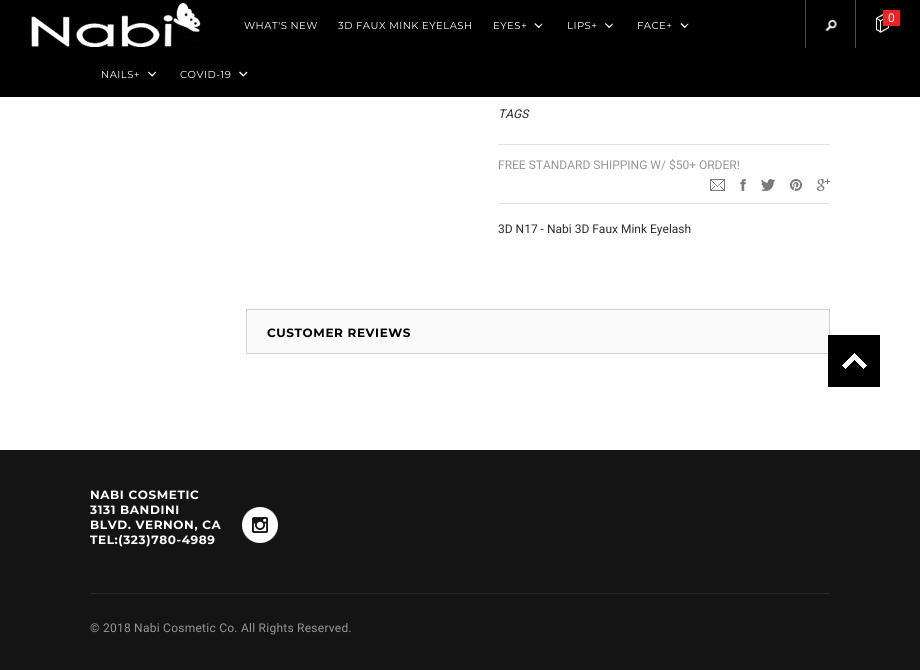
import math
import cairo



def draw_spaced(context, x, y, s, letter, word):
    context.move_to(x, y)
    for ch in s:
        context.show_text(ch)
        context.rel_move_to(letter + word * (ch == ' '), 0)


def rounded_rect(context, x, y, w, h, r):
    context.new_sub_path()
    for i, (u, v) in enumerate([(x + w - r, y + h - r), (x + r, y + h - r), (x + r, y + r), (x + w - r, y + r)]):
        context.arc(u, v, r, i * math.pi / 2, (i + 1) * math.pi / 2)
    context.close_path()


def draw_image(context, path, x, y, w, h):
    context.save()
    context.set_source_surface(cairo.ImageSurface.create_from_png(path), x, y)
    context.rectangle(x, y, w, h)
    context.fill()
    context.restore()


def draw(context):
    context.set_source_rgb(1, 1, 1)
    context.paint()
    context.set_source_rgb(0, 0, 0)
    context.rectangle(0, 0, 920, 97)
    context.fill()
    draw_image(context, "images/1.png", 825, 20, 12, 12)
    context.set_source_rgb(77 / 255, 77 / 255, 77 / 255)
    context.rectangle(805, 0, 1, 48)
    context.fill()
    draw_image(context, "images/2.png", 876, 14, 13, 19)
    context.rectangle(855, 0, 1, 48)
    context.fill()
    context.set_source_rgb(240 / 255, 33 / 255, 33 / 255)
    rounded_rect(context, 883, 10, 17, 16, 1)
    context.fill()
    draw_image(context, "images/3.png", 30, 2, 172, 45)
    context.set_source_rgb(1, 1, 1)
    context.new_path()
    context.move_to(542, 23.5)
    context.line_to(542.5, 24)
    context.line_to(539, 28)
    context.line_to(538, 27)
    context.close_path()
    context.fill()
    context.new_path()
    context.move_to(535, 23)
    context.line_to(539.5, 27)
    context.line_to(538.5, 28)
    context.line_to(534.5, 24)
    context.close_path()
    context.fill()
    context.new_path()
    context.move_to(612.5, 23.5)
    context.line_to(613, 24)
    context.line_to(609.5, 28)
    context.line_to(608.5, 27)
    context.close_path()
    context.fill()
    context.new_path()
    context.move_to(605.5, 23)
    context.line_to(610, 27)
    context.line_to(609, 28)
    context.line_to(605, 24)
    context.close_path()
    context.fill()
    context.new_path()
    context.move_to(688, 23.5)
    context.line_to(688.5, 24)
    context.line_to(685, 28)
    context.line_to(684, 27)
    context.close_path()
    context.fill()
    context.new_path()
    context.move_to(681.5, 23)
    context.line_to(685.5, 27)
    context.line_to(684.5, 28)
    context.line_to(680.5, 24)
    context.close_path()
    context.fill()
    context.new_path()
    context.move_to(155.5, 71.5)
    context.line_to(156, 72.5)
    context.line_to(152.5, 76.5)
    context.line_to(151.5, 75.5)
    context.close_path()
    context.fill()
    context.new_path()
    context.move_to(148.5, 71.5)
    context.line_to(153, 75.5)
    context.line_to(152, 76.5)
    context.line_to(148, 72.5)
    context.close_path()
    context.fill()
    context.new_path()
    context.move_to(246.5, 71.5)
    context.line_to(247.5, 72.5)
    context.line_to(243.5, 76.5)
    context.line_to(243, 75.5)
    context.close_path()
    context.fill()
    context.new_path()
    context.move_to(240, 71.5)
    context.line_to(244, 75.5)
    context.line_to(243, 76.5)
    context.line_to(239, 72.5)
    context.close_path()
    context.fill()
    context.set_source_rgb(227 / 255, 227 / 255, 227 / 255)
    context.rectangle(498, 144, 332, 1)
    context.fill()
    context.rectangle(498, 203, 332, 1)
    context.fill()
    draw_image(context, "images/4.png", 710, 179, 15, 12)
    draw_image(context, "images/5.png", 740, 179, 6, 12)
    draw_image(context, "images/6.png", 761, 179, 14, 12)
    draw_image(context, "images/7.png", 790, 179, 12, 12)
    draw_image(context, "images/8.png", 817, 179, 13, 12)
    context.set_source_rgb(208 / 255, 208 / 255, 208 / 255)
    context.rectangle(246, 353, 584, 1)
    context.fill()
    context.set_source_rgb(250 / 255, 250 / 255, 250 / 255)
    context.rectangle(247, 310, 582, 43)
    context.fill()
    context.set_source_rgb(208 / 255, 208 / 255, 208 / 255)
    context.rectangle(246, 309, 584, 1)
    context.fill()
    context.rectangle(829, 309, 1, 26)
    context.fill()
    context.rectangle(246, 309, 1, 44)
    context.fill()
    context.set_source_rgb(0, 0, 0)
    context.rectangle(828, 335, 52, 52)
    context.fill()
    draw_image(context, "images/9.png", 842, 353, 25, 16)
    context.set_source_rgb(20 / 255, 20 / 255, 20 / 255)
    context.rectangle(0, 450, 920, 220)
    context.fill()
    draw_image(context, "images/10.png", 242, 507, 36, 36)
    context.set_source_rgb(40 / 255, 40 / 255, 40 / 255)
    context.rectangle(90, 593, 740, 1)
    context.fill()
    context.select_font_face("Roboto")
    context.set_font_size(12)
    context.set_source_rgb(1, 1, 1)
    draw_spaced(context, 888, 22, "0", 0.25, 0)
    context.select_font_face("Montserrat")
    context.set_font_size(10)
    draw_spaced(context, 244, 29, "WHAT'S NEW", 0.5, 0)
    draw_spaced(context, 338, 29, "3D FAUX MINK EYELASH", 0.5, 0)
    draw_spaced(context, 493, 29, "EYES+", 0.5, 0)
    draw_spaced(context, 567, 29, "LIPS+", 0.5, 0)
    draw_spaced(context, 637, 29, "FACE+", 0.5, 0)
    draw_spaced(context, 101, 78, "NAILS+", 0.5, 0)
    draw_spaced(context, 180, 78, "COVID-19", 0.5, 0)
    context.select_font_face("Roboto", cairo.FontSlant.ITALIC)
    context.set_font_size(12)
    context.set_source_rgb(45 / 255, 45 / 255, 45 / 255)
    context.move_to(498, 118)
    context.show_text("TAGS")
    context.select_font_face("Roboto")
    context.set_source_rgb(150 / 255, 150 / 255, 150 / 255)
    context.move_to(498, 169)
    context.show_text("FREE STANDARD SHIPPING W/ $50+ ORDER!")
    context.set_source_rgb(45 / 255, 45 / 255, 45 / 255)
    context.move_to(498, 233)
    context.show_text("3D N17 - Nabi 3D Faux Mink Eyelash")
    context.select_font_face("Montserrat", cairo.FontSlant.NORMAL, cairo.FontWeight.BOLD)
    context.set_source_rgb(0, 0, 0)
    draw_spaced(context, 267, 337, "CUSTOMER REVIEWS", 0.6, 0)
    context.set_source_rgb(1, 1, 1)
    draw_spaced(context, 90, 499, "NABI COSMETIC", 0.6, 0)
    draw_spaced(context, 90, 514, "3131 BANDINI", 0.6, 0)
    draw_spaced(context, 90, 529, "BLVD. VERNON, CA", 0.6, 0)
    draw_spaced(context, 90, 544, "TEL:(323)780-4989", 0.6, 0)
    context.select_font_face("Roboto")
    context.set_source_rgb(150 / 255, 150 / 255, 150 / 255)
    draw_spaced(context, 90, 632, "© 2018 Nabi Cosmetic Co. All Rights Reserved.", 0.25, 0)


surface = cairo.ImageSurface(cairo.Format.RGB24, 920, 670)
context = cairo.Context(surface)
options = cairo.FontOptions()
options.set_hint_metrics(cairo.HintMetrics.OFF)
options.set_hint_style(cairo.HintStyle.NONE)
context.set_font_options(options)
context.set_miter_limit(4)
draw(context)
surface.write_to_png("out.png")
